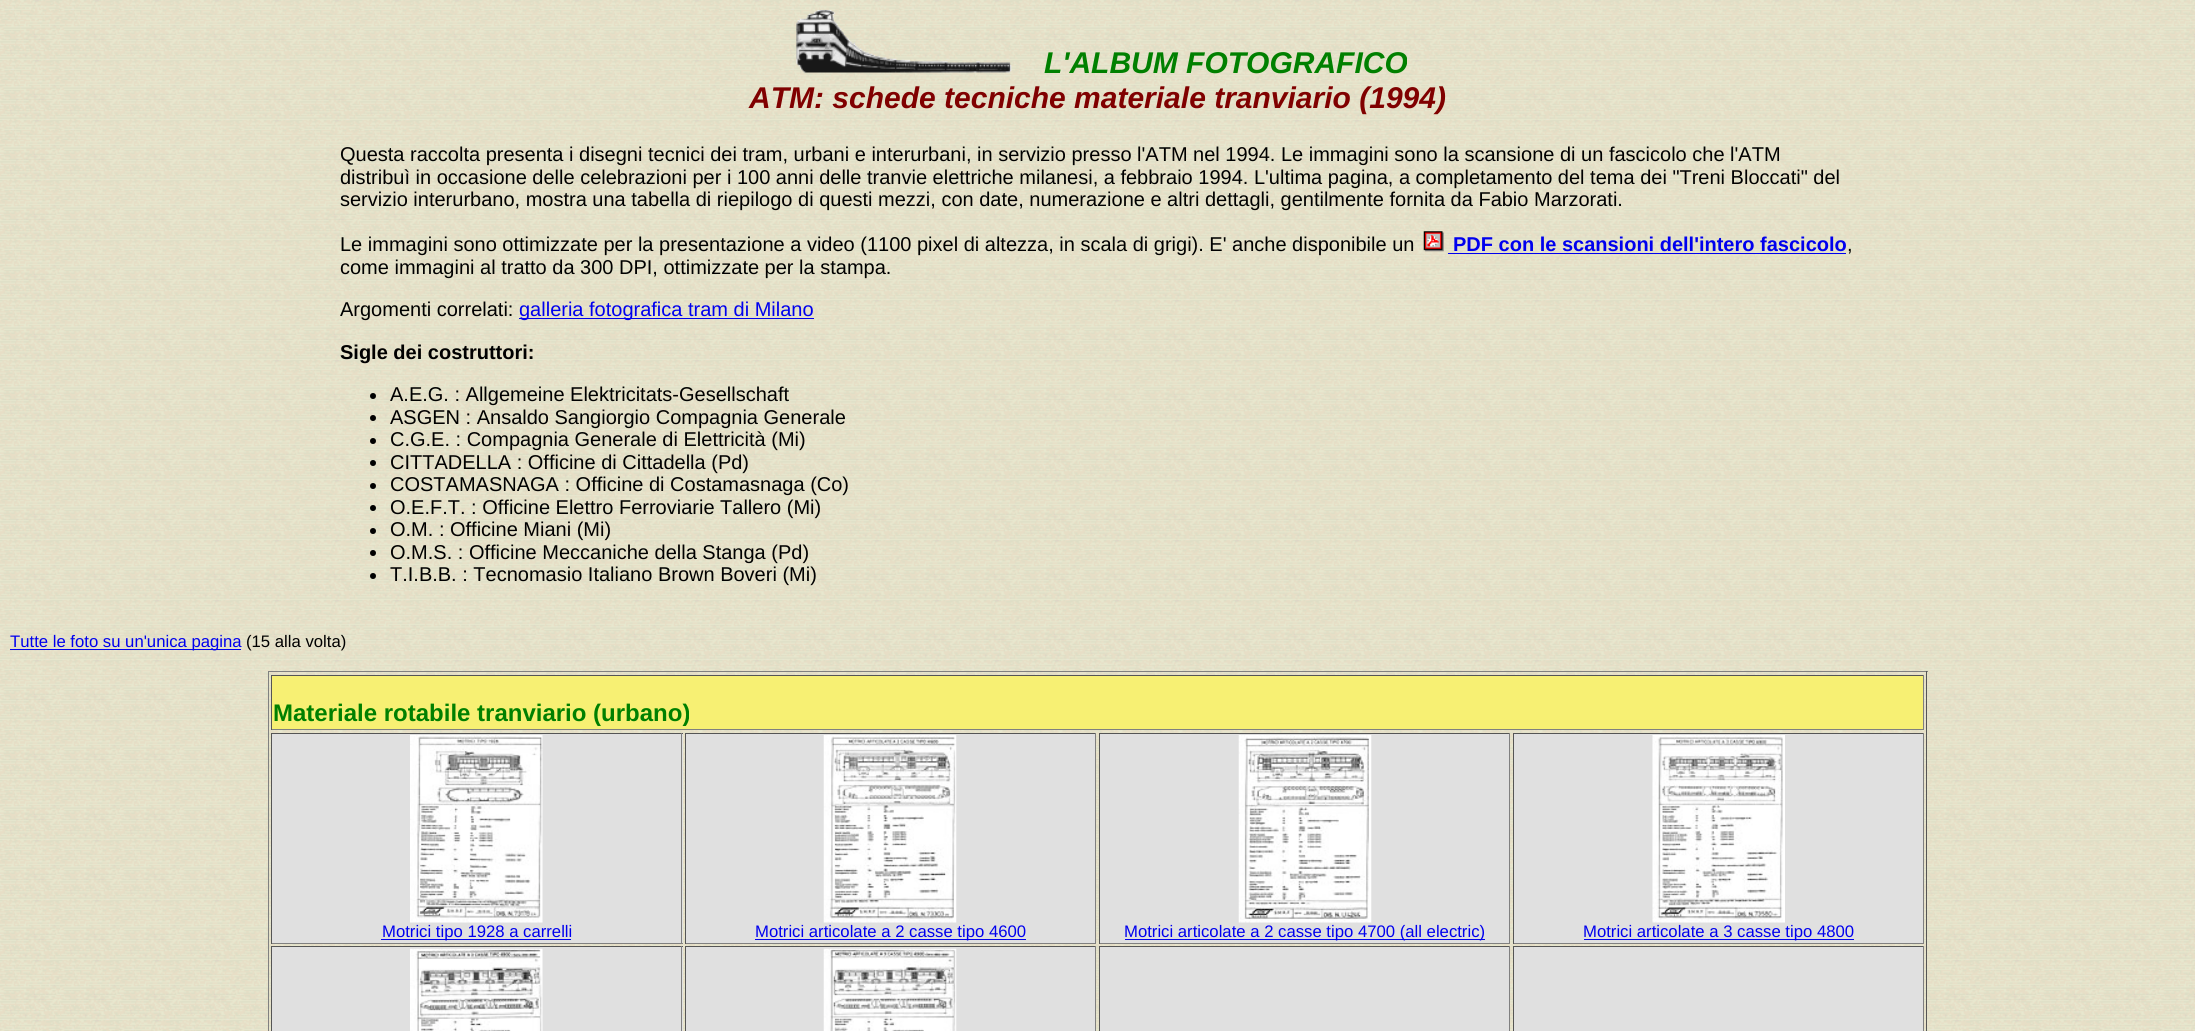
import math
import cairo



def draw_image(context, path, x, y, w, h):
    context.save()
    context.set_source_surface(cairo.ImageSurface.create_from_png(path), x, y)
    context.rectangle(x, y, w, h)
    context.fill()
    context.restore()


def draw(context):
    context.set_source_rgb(1, 1, 1)
    context.paint()
    draw_image(context, "images/1.png", 0, 0, 2195, 1031)
    draw_image(context, "images/2.png", 796, 10, 216, 63)
    draw_image(context, "images/3.png", 1423, 231, 21, 21)
    context.set_source_rgb(0, 0, 238 / 255)
    context.rectangle(1448, 253, 398, 1)
    context.fill()
    context.rectangle(519, 318, 295, 1)
    context.fill()
    context.set_source_rgb(0, 0, 0)
    context.arc(373, 396, 3, 0, 2 * math.pi)
    context.fill()
    context.arc(373, 418, 3, 0, 2 * math.pi)
    context.fill()
    context.arc(373, 441, 3, 0, 2 * math.pi)
    context.fill()
    context.arc(373, 463, 3, 0, 2 * math.pi)
    context.fill()
    context.arc(373, 486, 3, 0, 2 * math.pi)
    context.fill()
    context.arc(373, 508, 3, 0, 2 * math.pi)
    context.fill()
    context.arc(373, 531, 3, 0, 2 * math.pi)
    context.fill()
    context.arc(373, 553, 3, 0, 2 * math.pi)
    context.fill()
    context.arc(373, 576, 3, 0, 2 * math.pi)
    context.fill()
    context.set_source_rgb(0, 0, 238 / 255)
    context.rectangle(10, 649, 231, 1)
    context.fill()
    context.set_source_rgb(128 / 255, 128 / 255, 128 / 255)
    context.rectangle(268, 671, 1660, 1)
    context.fill()
    context.set_source_rgb(85 / 255, 85 / 255, 85 / 255)
    context.rectangle(1926, 671, 1, 360)
    context.fill()
    context.set_source_rgb(128 / 255, 128 / 255, 128 / 255)
    context.rectangle(268, 671, 1, 360)
    context.fill()
    context.set_source_rgb(247 / 255, 240 / 255, 115 / 255)
    context.rectangle(272, 676, 1651, 53)
    context.fill()
    context.set_source_rgb(85 / 255, 85 / 255, 85 / 255)
    context.rectangle(271, 675, 1653, 1)
    context.fill()
    context.set_source_rgb(128 / 255, 128 / 255, 128 / 255)
    context.rectangle(1923, 675, 1, 55)
    context.fill()
    context.rectangle(271, 729, 1653, 1)
    context.fill()
    context.set_source_rgb(85 / 255, 85 / 255, 85 / 255)
    context.rectangle(271, 675, 1, 55)
    context.fill()
    context.set_source_rgb(224 / 255, 224 / 255, 224 / 255)
    context.rectangle(272, 734, 411, 209)
    context.fill()
    context.set_source_rgb(85 / 255, 85 / 255, 85 / 255)
    context.rectangle(271, 733, 412, 1)
    context.fill()
    context.set_source_rgb(128 / 255, 128 / 255, 128 / 255)
    context.rectangle(681, 733, 1, 211)
    context.fill()
    context.rectangle(271, 943, 412, 1)
    context.fill()
    context.set_source_rgb(85 / 255, 85 / 255, 85 / 255)
    context.rectangle(271, 733, 1, 211)
    context.fill()
    draw_image(context, "images/4.png", 410, 735, 133, 188)
    context.set_source_rgb(0, 0, 238 / 255)
    context.rectangle(381, 939, 190, 1)
    context.fill()
    context.set_source_rgb(224 / 255, 224 / 255, 224 / 255)
    context.rectangle(686, 734, 409, 209)
    context.fill()
    context.set_source_rgb(85 / 255, 85 / 255, 85 / 255)
    context.rectangle(685, 733, 411, 1)
    context.fill()
    context.set_source_rgb(128 / 255, 128 / 255, 128 / 255)
    context.rectangle(1095, 733, 1, 211)
    context.fill()
    context.rectangle(685, 943, 411, 1)
    context.fill()
    context.set_source_rgb(85 / 255, 85 / 255, 85 / 255)
    context.rectangle(685, 733, 1, 211)
    context.fill()
    draw_image(context, "images/5.png", 823, 735, 134, 188)
    context.set_source_rgb(0, 0, 238 / 255)
    context.rectangle(755, 939, 271, 1)
    context.fill()
    context.set_source_rgb(224 / 255, 224 / 255, 224 / 255)
    context.rectangle(1100, 734, 409, 209)
    context.fill()
    context.set_source_rgb(85 / 255, 85 / 255, 85 / 255)
    context.rectangle(1099, 733, 411, 1)
    context.fill()
    context.set_source_rgb(128 / 255, 128 / 255, 128 / 255)
    context.rectangle(1509, 733, 1, 211)
    context.fill()
    context.rectangle(1099, 943, 411, 1)
    context.fill()
    context.set_source_rgb(85 / 255, 85 / 255, 85 / 255)
    context.rectangle(1099, 733, 1, 211)
    context.fill()
    draw_image(context, "images/6.png", 1238, 735, 134, 188)
    context.set_source_rgb(0, 0, 238 / 255)
    context.rectangle(1125, 939, 360, 1)
    context.fill()
    context.set_source_rgb(224 / 255, 224 / 255, 224 / 255)
    context.rectangle(1514, 734, 409, 209)
    context.fill()
    context.set_source_rgb(85 / 255, 85 / 255, 85 / 255)
    context.rectangle(1513, 733, 411, 1)
    context.fill()
    context.set_source_rgb(128 / 255, 128 / 255, 128 / 255)
    context.rectangle(1923, 733, 1, 211)
    context.fill()
    context.rectangle(1513, 943, 411, 1)
    context.fill()
    context.set_source_rgb(85 / 255, 85 / 255, 85 / 255)
    context.rectangle(1513, 733, 1, 211)
    context.fill()
    draw_image(context, "images/7.png", 1652, 735, 133, 188)
    context.set_source_rgb(0, 0, 238 / 255)
    context.rectangle(1584, 939, 270, 1)
    context.fill()
    context.set_source_rgb(224 / 255, 224 / 255, 224 / 255)
    context.rectangle(272, 947, 411, 84)
    context.fill()
    context.set_source_rgb(85 / 255, 85 / 255, 85 / 255)
    context.rectangle(271, 946, 412, 1)
    context.fill()
    context.set_source_rgb(128 / 255, 128 / 255, 128 / 255)
    context.rectangle(681, 946, 1, 85)
    context.fill()
    context.set_source_rgb(85 / 255, 85 / 255, 85 / 255)
    context.rectangle(271, 946, 1, 85)
    context.fill()
    draw_image(context, "images/8.png", 410, 948, 133, 83)
    context.set_source_rgb(224 / 255, 224 / 255, 224 / 255)
    context.rectangle(686, 947, 409, 84)
    context.fill()
    context.set_source_rgb(85 / 255, 85 / 255, 85 / 255)
    context.rectangle(685, 946, 411, 1)
    context.fill()
    context.set_source_rgb(128 / 255, 128 / 255, 128 / 255)
    context.rectangle(1095, 946, 1, 85)
    context.fill()
    context.set_source_rgb(85 / 255, 85 / 255, 85 / 255)
    context.rectangle(685, 946, 1, 85)
    context.fill()
    draw_image(context, "images/9.png", 823, 948, 134, 83)
    context.set_source_rgb(224 / 255, 224 / 255, 224 / 255)
    context.rectangle(1100, 947, 409, 84)
    context.fill()
    context.set_source_rgb(85 / 255, 85 / 255, 85 / 255)
    context.rectangle(1099, 946, 411, 1)
    context.fill()
    context.set_source_rgb(128 / 255, 128 / 255, 128 / 255)
    context.rectangle(1509, 946, 1, 85)
    context.fill()
    context.set_source_rgb(85 / 255, 85 / 255, 85 / 255)
    context.rectangle(1099, 946, 1, 85)
    context.fill()
    context.set_source_rgb(224 / 255, 224 / 255, 224 / 255)
    context.rectangle(1514, 947, 409, 84)
    context.fill()
    context.set_source_rgb(85 / 255, 85 / 255, 85 / 255)
    context.rectangle(1513, 946, 411, 1)
    context.fill()
    context.set_source_rgb(128 / 255, 128 / 255, 128 / 255)
    context.rectangle(1923, 946, 1, 85)
    context.fill()
    context.set_source_rgb(85 / 255, 85 / 255, 85 / 255)
    context.rectangle(1513, 946, 1, 85)
    context.fill()
    context.select_font_face("Liberation Sans", cairo.FontSlant.ITALIC, cairo.FontWeight.BOLD)
    context.set_font_size(30)
    context.set_source_rgb(0, 128 / 255, 0)
    context.move_to(1044, 73)
    context.show_text("L'ALBUM FOTOGRAFICO")
    context.set_source_rgb(128 / 255, 0, 0)
    context.move_to(749, 108)
    context.show_text("ATM: schede tecniche materiale tranviario (1994)")
    context.select_font_face("Liberation Sans")
    context.set_font_size(20)
    context.set_source_rgb(0, 0, 0)
    context.move_to(340, 161)
    context.show_text("Questa raccolta presenta i disegni tecnici dei tram, urbani e interurbani, in servizio presso l'ATM nel 1994. Le immagini sono la scansione di un fascicolo che l'ATM")
    context.move_to(340, 184)
    context.show_text("distribuì in occasione delle celebrazioni per i 100 anni delle tranvie elettriche milanesi, a febbraio 1994. L'ultima pagina, a completamento del tema dei \"Treni Bloccati\" del")
    context.move_to(340, 206)
    context.show_text("servizio interurbano, mostra una tabella di riepilogo di questi mezzi, con date, numerazione e altri dettagli, gentilmente fornita da Fabio Marzorati.")
    context.move_to(340, 251)
    context.show_text("Le immagini sono ottimizzate per la presentazione a video (1100 pixel di altezza, in scala di grigi). E' anche disponibile un")
    context.select_font_face("Liberation Sans", cairo.FontSlant.NORMAL, cairo.FontWeight.BOLD)
    context.set_source_rgb(0, 0, 238 / 255)
    context.move_to(1453, 251)
    context.show_text("PDF con le scansioni dell'intero fascicolo")
    context.select_font_face("Liberation Sans")
    context.set_source_rgb(0, 0, 0)
    context.move_to(1847, 251)
    context.show_text(",")
    context.move_to(340, 274)
    context.show_text("come immagini al tratto da 300 DPI, ottimizzate per la stampa.")
    context.move_to(340, 316)
    context.show_text("Argomenti correlati:")
    context.set_source_rgb(0, 0, 238 / 255)
    context.move_to(519, 316)
    context.show_text("galleria fotografica tram di Milano")
    context.select_font_face("Liberation Sans", cairo.FontSlant.NORMAL, cairo.FontWeight.BOLD)
    context.set_source_rgb(0, 0, 0)
    context.move_to(340, 359)
    context.show_text("Sigle dei costruttori:")
    context.select_font_face("Liberation Sans")
    context.move_to(390, 401)
    context.show_text("A.E.G. : Allgemeine Elektricitats-Gesellschaft")
    context.move_to(390, 424)
    context.show_text("ASGEN : Ansaldo Sangiorgio Compagnia Generale")
    context.move_to(390, 446)
    context.show_text("C.G.E. : Compagnia Generale di Elettricità (Mi)")
    context.move_to(390, 469)
    context.show_text("CITTADELLA : Officine di Cittadella (Pd)")
    context.move_to(390, 491)
    context.show_text("COSTAMASNAGA : Officine di Costamasnaga (Co)")
    context.move_to(390, 514)
    context.show_text("O.E.F.T. : Officine Elettro Ferroviarie Tallero (Mi)")
    context.move_to(390, 536)
    context.show_text("O.M. : Officine Miani (Mi)")
    context.move_to(390, 559)
    context.show_text("O.M.S. : Officine Meccaniche della Stanga (Pd)")
    context.move_to(390, 581)
    context.show_text("T.I.B.B. : Tecnomasio Italiano Brown Boveri (Mi)")
    context.set_font_size(16.7)
    context.set_source_rgb(0, 0, 238 / 255)
    context.move_to(10, 647)
    context.show_text("Tutte le foto su un'unica pagina")
    context.set_source_rgb(0, 0, 0)
    context.move_to(246, 647)
    context.show_text("(15 alla volta)")
    context.select_font_face("Liberation Sans", cairo.FontSlant.NORMAL, cairo.FontWeight.BOLD)
    context.set_font_size(24)
    context.set_source_rgb(0, 128 / 255, 0)
    context.move_to(273, 721)
    context.show_text("Materiale rotabile tranviario (urbano)")
    context.select_font_face("Liberation Sans")
    context.set_font_size(16.7)
    context.set_source_rgb(0, 0, 238 / 255)
    context.move_to(382, 937)
    context.show_text("Motrici tipo 1928 a carrelli")
    context.move_to(755, 937)
    context.show_text("Motrici articolate a 2 casse tipo 4600")
    context.move_to(1124, 937)
    context.show_text("Motrici articolate a 2 casse tipo 4700 (all electric)")
    context.move_to(1583, 937)
    context.show_text("Motrici articolate a 3 casse tipo 4800")


surface = cairo.ImageSurface(cairo.Format.RGB24, 2195, 1031)
context = cairo.Context(surface)
options = cairo.FontOptions()
options.set_hint_metrics(cairo.HintMetrics.OFF)
options.set_hint_style(cairo.HintStyle.NONE)
context.set_font_options(options)
context.set_miter_limit(4)
draw(context)
surface.write_to_png("out.png")
